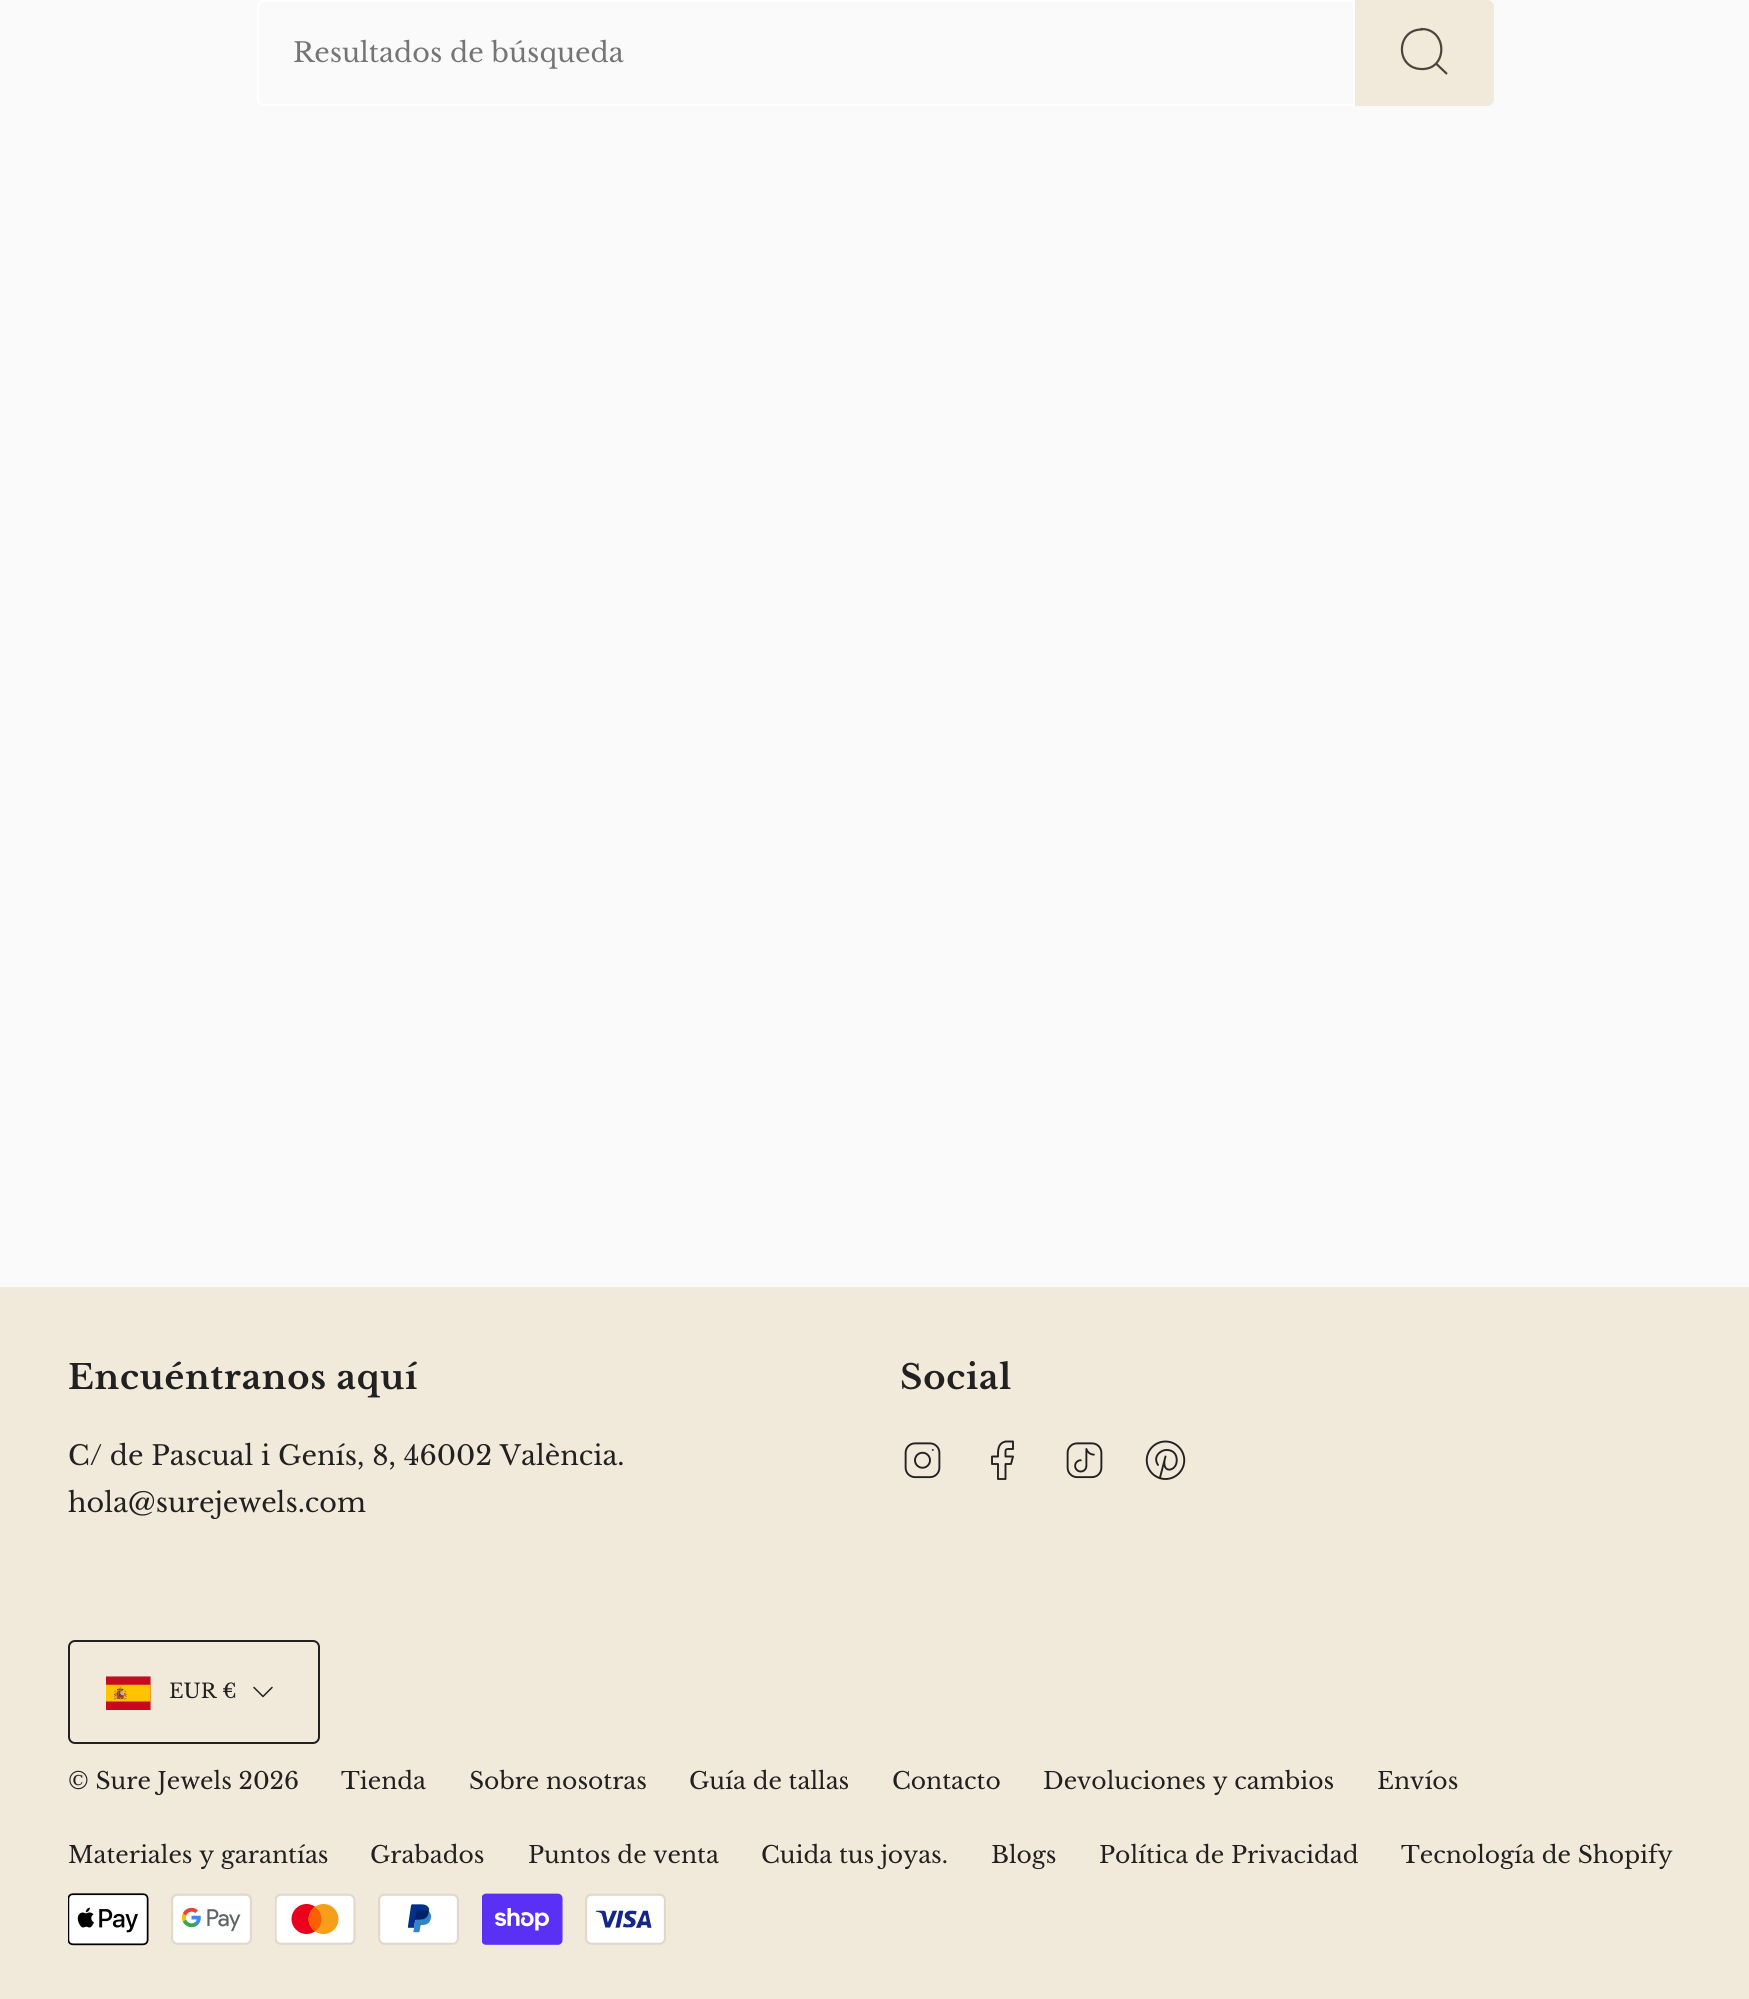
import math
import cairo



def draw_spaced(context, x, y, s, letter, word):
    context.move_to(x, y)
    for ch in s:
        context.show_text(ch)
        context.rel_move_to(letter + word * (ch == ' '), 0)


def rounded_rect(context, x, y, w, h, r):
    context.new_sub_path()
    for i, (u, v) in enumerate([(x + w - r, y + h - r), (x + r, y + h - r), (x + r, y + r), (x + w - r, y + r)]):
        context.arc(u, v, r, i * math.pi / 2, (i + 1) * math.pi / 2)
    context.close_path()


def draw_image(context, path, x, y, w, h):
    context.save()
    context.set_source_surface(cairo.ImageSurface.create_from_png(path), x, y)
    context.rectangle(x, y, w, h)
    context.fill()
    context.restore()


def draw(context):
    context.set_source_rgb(250 / 255, 250 / 255, 250 / 255)
    context.paint()
    context.new_path()
    context.move_to(264, 1)
    context.line_to(1354, 1)
    context.line_to(1354, 105)
    context.line_to(264, 105)
    context.curve_to(260.5, 105, 258, 102.5, 258, 99)
    context.line_to(258, 7)
    context.curve_to(258, 3.5, 260.5, 1, 264, 1)
    context.close_path()
    context.set_source_rgb(1, 1, 1)
    context.stroke()
    context.set_source_rgb(241 / 255, 233 / 255, 218 / 255)
    context.new_path()
    context.move_to(1356, 1)
    context.line_to(1487, 1)
    context.curve_to(1490.5, 1, 1493, 3.5, 1493, 7)
    context.line_to(1493, 99)
    context.curve_to(1493, 102.5, 1490.5, 105, 1487, 105)
    context.line_to(1356, 105)
    context.close_path()
    context.fill_preserve()
    context.stroke()
    context.new_path()
    context.move_to(1421.5, 29)
    context.curve_to(1448, 29, 1448, 70.5, 1421, 69)
    context.curve_to(1395, 68, 1396, 29.5, 1421.5, 29.5)
    context.close_path()
    context.move_to(1436, 63.5)
    context.line_to(1447, 74)
    context.set_source_rgb(75 / 255, 67 / 255, 62 / 255)
    context.set_line_width(2.2)
    context.stroke()
    context.set_source_rgb(241 / 255, 233 / 255, 218 / 255)
    context.rectangle(0, 1287, 1749, 712)
    context.fill()
    draw_image(context, "images/1.png", 904, 1442, 37, 37)
    context.new_path()
    context.move_to(1013, 1441.5)
    context.line_to(1005.5, 1441.5)
    context.curve_to(997.5, 1443.5, 998, 1450.5, 998, 1456.5)
    context.line_to(992, 1456.5)
    context.line_to(992, 1464)
    context.line_to(998, 1464)
    context.line_to(998, 1479)
    context.line_to(1005.5, 1479)
    context.line_to(1005.5, 1464)
    context.line_to(1011, 1464)
    context.line_to(1013, 1456.5)
    context.line_to(1005.5, 1456.5)
    context.curve_to(1005.5, 1448, 1004.5, 1449, 1013, 1449)
    context.close_path()
    context.set_source_rgb(33 / 255, 33 / 255, 33 / 255)
    context.set_line_width(1.9)
    context.set_line_cap(cairo.LineCap.ROUND)
    context.set_line_join(cairo.LineJoin.ROUND)
    context.stroke()
    draw_image(context, "images/2.png", 1066, 1442, 37, 37)
    draw_image(context, "images/3.png", 1145, 1440, 41, 40)
    rounded_rect(context, 69, 1641, 250, 102, 6)
    context.set_line_width(2)
    context.set_line_cap(cairo.LineCap.BUTT)
    context.set_line_join(cairo.LineJoin.MITER)
    context.stroke()
    draw_image(context, "images/4.png", 106, 1676, 45, 34)
    context.new_path()
    context.move_to(254, 1687.5)
    context.line_to(263, 1696.5)
    context.line_to(272, 1687.5)
    context.set_line_width(1.5)
    context.set_line_cap(cairo.LineCap.ROUND)
    context.set_line_join(cairo.LineJoin.ROUND)
    context.stroke()
    draw_image(context, "images/5.png", 68, 1893, 81, 53)
    draw_image(context, "images/6.png", 171, 1893, 81, 52)
    draw_image(context, "images/7.png", 275, 1893, 81, 52)
    draw_image(context, "images/8.png", 378, 1893, 81, 52)
    draw_image(context, "images/9.png", 482, 1893, 81, 52)
    draw_image(context, "images/10.png", 585, 1893, 81, 52)
    context.select_font_face("Libre Baskerville")
    context.set_font_size(27)
    context.set_source_rgb(117 / 255, 117 / 255, 117 / 255)
    context.move_to(293, 62)
    context.show_text("Resultados de búsqueda")
    context.select_font_face("Libre Baskerville", cairo.FontSlant.NORMAL, cairo.FontWeight.BOLD)
    context.set_font_size(33.75)
    context.set_source_rgb(33 / 255, 33 / 255, 33 / 255)
    draw_spaced(context, 68, 1389, "Encuéntranos aquí", 0.8, 0)
    context.select_font_face("Libre Baskerville")
    context.set_font_size(27)
    context.move_to(68, 1465)
    context.show_text("C/ de Pascual i Genís, 8, 46002 València.")
    context.move_to(68, 1512)
    context.show_text("hola@surejewels.com")
    context.select_font_face("Libre Baskerville", cairo.FontSlant.NORMAL, cairo.FontWeight.BOLD)
    context.set_font_size(33.75)
    draw_spaced(context, 900, 1389, "Social", 0.8, 0)
    context.select_font_face("Libre Baskerville")
    context.set_font_size(20)
    context.move_to(169, 1698)
    context.show_text("EUR €")
    context.set_font_size(23.4)
    context.move_to(68, 1789)
    context.show_text("© Sure Jewels 2026")
    context.move_to(341, 1789)
    context.show_text("Tienda")
    context.move_to(469, 1789)
    context.show_text("Sobre nosotras")
    context.move_to(689, 1789)
    context.show_text("Guía de tallas")
    context.move_to(892, 1789)
    context.show_text("Contacto")
    context.move_to(1043, 1789)
    context.show_text("Devoluciones y cambios")
    context.move_to(1377, 1789)
    context.show_text("Envíos")
    context.move_to(68, 1863)
    context.show_text("Materiales y garantías")
    context.move_to(370, 1863)
    context.show_text("Grabados")
    context.move_to(528, 1863)
    context.show_text("Puntos de venta")
    context.move_to(761, 1863)
    context.show_text("Cuida tus joyas.")
    context.move_to(991, 1863)
    context.show_text("Blogs")
    context.move_to(1099, 1863)
    context.show_text("Política de Privacidad")
    context.move_to(1401, 1863)
    context.show_text("Tecnología de Shopify")


surface = cairo.ImageSurface(cairo.Format.RGB24, 1749, 1999)
context = cairo.Context(surface)
options = cairo.FontOptions()
options.set_hint_metrics(cairo.HintMetrics.OFF)
options.set_hint_style(cairo.HintStyle.NONE)
context.set_font_options(options)
context.set_miter_limit(4)
draw(context)
surface.write_to_png("out.png")
